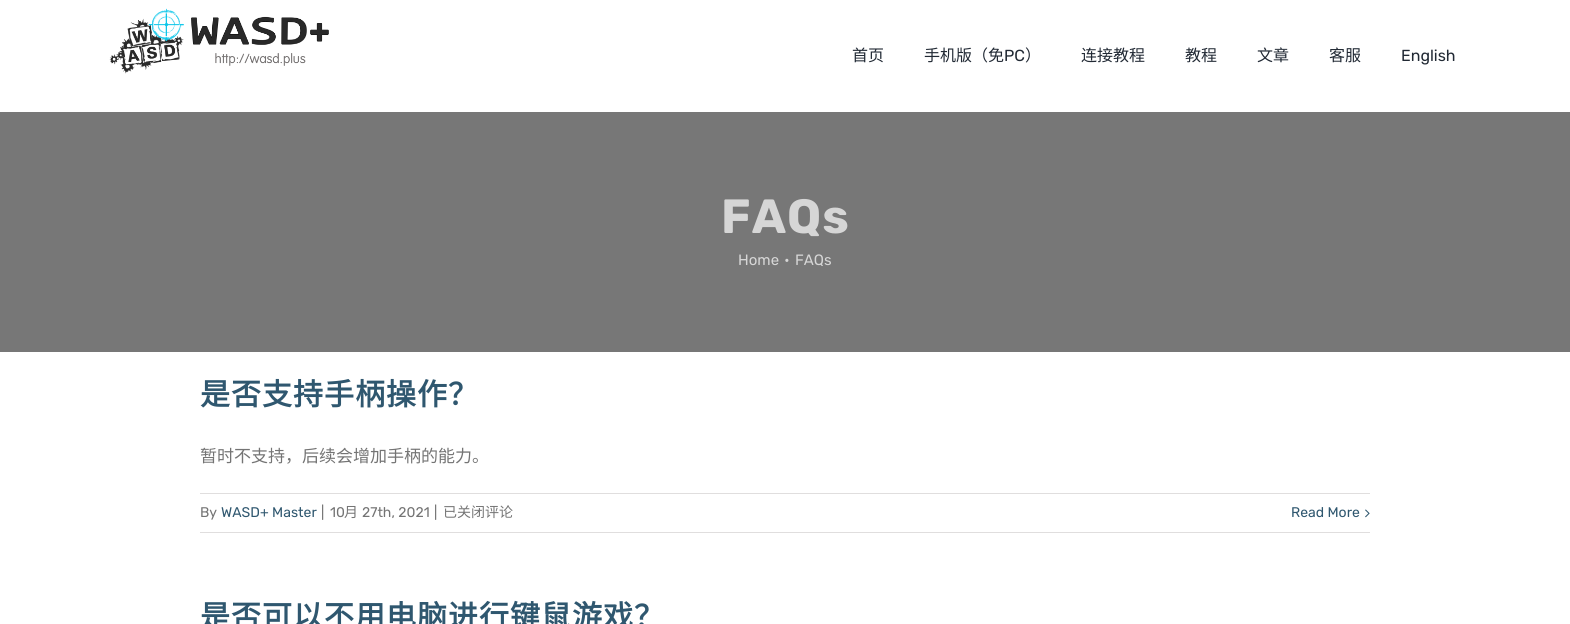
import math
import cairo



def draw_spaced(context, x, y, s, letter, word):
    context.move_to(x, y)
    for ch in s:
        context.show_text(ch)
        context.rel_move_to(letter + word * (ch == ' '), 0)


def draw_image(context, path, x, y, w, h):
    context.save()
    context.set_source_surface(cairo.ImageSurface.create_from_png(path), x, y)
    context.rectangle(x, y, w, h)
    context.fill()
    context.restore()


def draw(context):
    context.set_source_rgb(1, 1, 1)
    context.paint()
    draw_image(context, "images/1.png", 109, 8, 220, 66)
    context.set_source_rgb(119 / 255, 119 / 255, 119 / 255)
    context.rectangle(0, 112, 1570, 240)
    context.fill()
    context.set_source_rgb(224 / 255, 222 / 255, 222 / 255)
    context.rectangle(200, 493, 1170, 1)
    context.fill()
    context.rectangle(200, 532, 1170, 1)
    context.fill()
    draw_image(context, "images/2.png", 1365, 509, 5, 9)
    context.select_font_face("Noto Sans CJK SC")
    context.set_font_size(16)
    context.set_source_rgb(33 / 255, 41 / 255, 52 / 255)
    context.move_to(852, 61)
    context.show_text("首页")
    context.move_to(924, 61)
    context.show_text("手机版（免")
    context.select_font_face("Rubik")
    context.move_to(1004, 61)
    context.show_text("PC")
    context.select_font_face("Noto Sans CJK SC")
    context.move_to(1025, 61)
    context.show_text("）")
    context.move_to(1081, 61)
    context.show_text("连接教程")
    context.move_to(1185, 61)
    context.show_text("教程")
    context.move_to(1257, 61)
    context.show_text("文章")
    context.move_to(1329, 61)
    context.show_text("客服")
    context.select_font_face("Rubik")
    context.move_to(1401, 61)
    context.show_text("English")
    context.select_font_face("Rubik", cairo.FontSlant.NORMAL, cairo.FontWeight.BOLD)
    context.set_font_size(48)
    context.set_source_rgb(214 / 255, 214 / 255, 214 / 255)
    draw_spaced(context, 721, 233, "FAQs", 1, 0)
    context.select_font_face("Rubik")
    context.set_font_size(15)
    context.move_to(738, 265)
    context.show_text("Home")
    context.move_to(784, 265)
    context.show_text("•")
    context.move_to(795, 265)
    context.show_text("FAQs")
    context.select_font_face("Noto Sans CJK SC", cairo.FontSlant.NORMAL, cairo.FontWeight.BOLD)
    context.set_font_size(30)
    context.set_source_rgb(47 / 255, 87 / 255, 111 / 255)
    draw_spaced(context, 200, 405, "是否支持手柄操作？", 1, 0)
    context.select_font_face("Noto Sans CJK SC")
    context.set_font_size(17)
    context.set_source_rgb(116 / 255, 116 / 255, 116 / 255)
    context.move_to(200, 462)
    context.show_text("暂时不支持，后续会增加手柄的能力。")
    context.select_font_face("Rubik")
    context.set_font_size(14)
    context.move_to(200, 517)
    context.show_text("By")
    context.set_source_rgb(47 / 255, 87 / 255, 111 / 255)
    context.move_to(221, 517)
    context.show_text("WASD+ Master")
    context.set_source_rgb(116 / 255, 116 / 255, 116 / 255)
    context.move_to(321, 517)
    context.show_text("|")
    context.move_to(330, 517)
    context.show_text("10")
    context.select_font_face("Noto Sans CJK SC")
    context.move_to(344, 517)
    context.show_text("月")
    context.select_font_face("Rubik")
    context.move_to(362, 517)
    context.show_text("27th, 2021")
    context.move_to(434, 517)
    context.show_text("|")
    context.select_font_face("Noto Sans CJK SC")
    context.move_to(443, 517)
    context.show_text("已关闭评论")
    context.select_font_face("Rubik")
    context.set_source_rgb(47 / 255, 87 / 255, 111 / 255)
    context.move_to(1291, 517)
    context.show_text("Read More")
    context.select_font_face("Noto Sans CJK SC", cairo.FontSlant.NORMAL, cairo.FontWeight.BOLD)
    context.set_font_size(30)
    draw_spaced(context, 200, 627, "是否可以不用电脑进行键鼠游戏？", 1, 0)


surface = cairo.ImageSurface(cairo.Format.RGB24, 1570, 624)
context = cairo.Context(surface)
options = cairo.FontOptions()
options.set_hint_metrics(cairo.HintMetrics.OFF)
options.set_hint_style(cairo.HintStyle.NONE)
context.set_font_options(options)
context.set_miter_limit(4)
draw(context)
surface.write_to_png("out.png")
